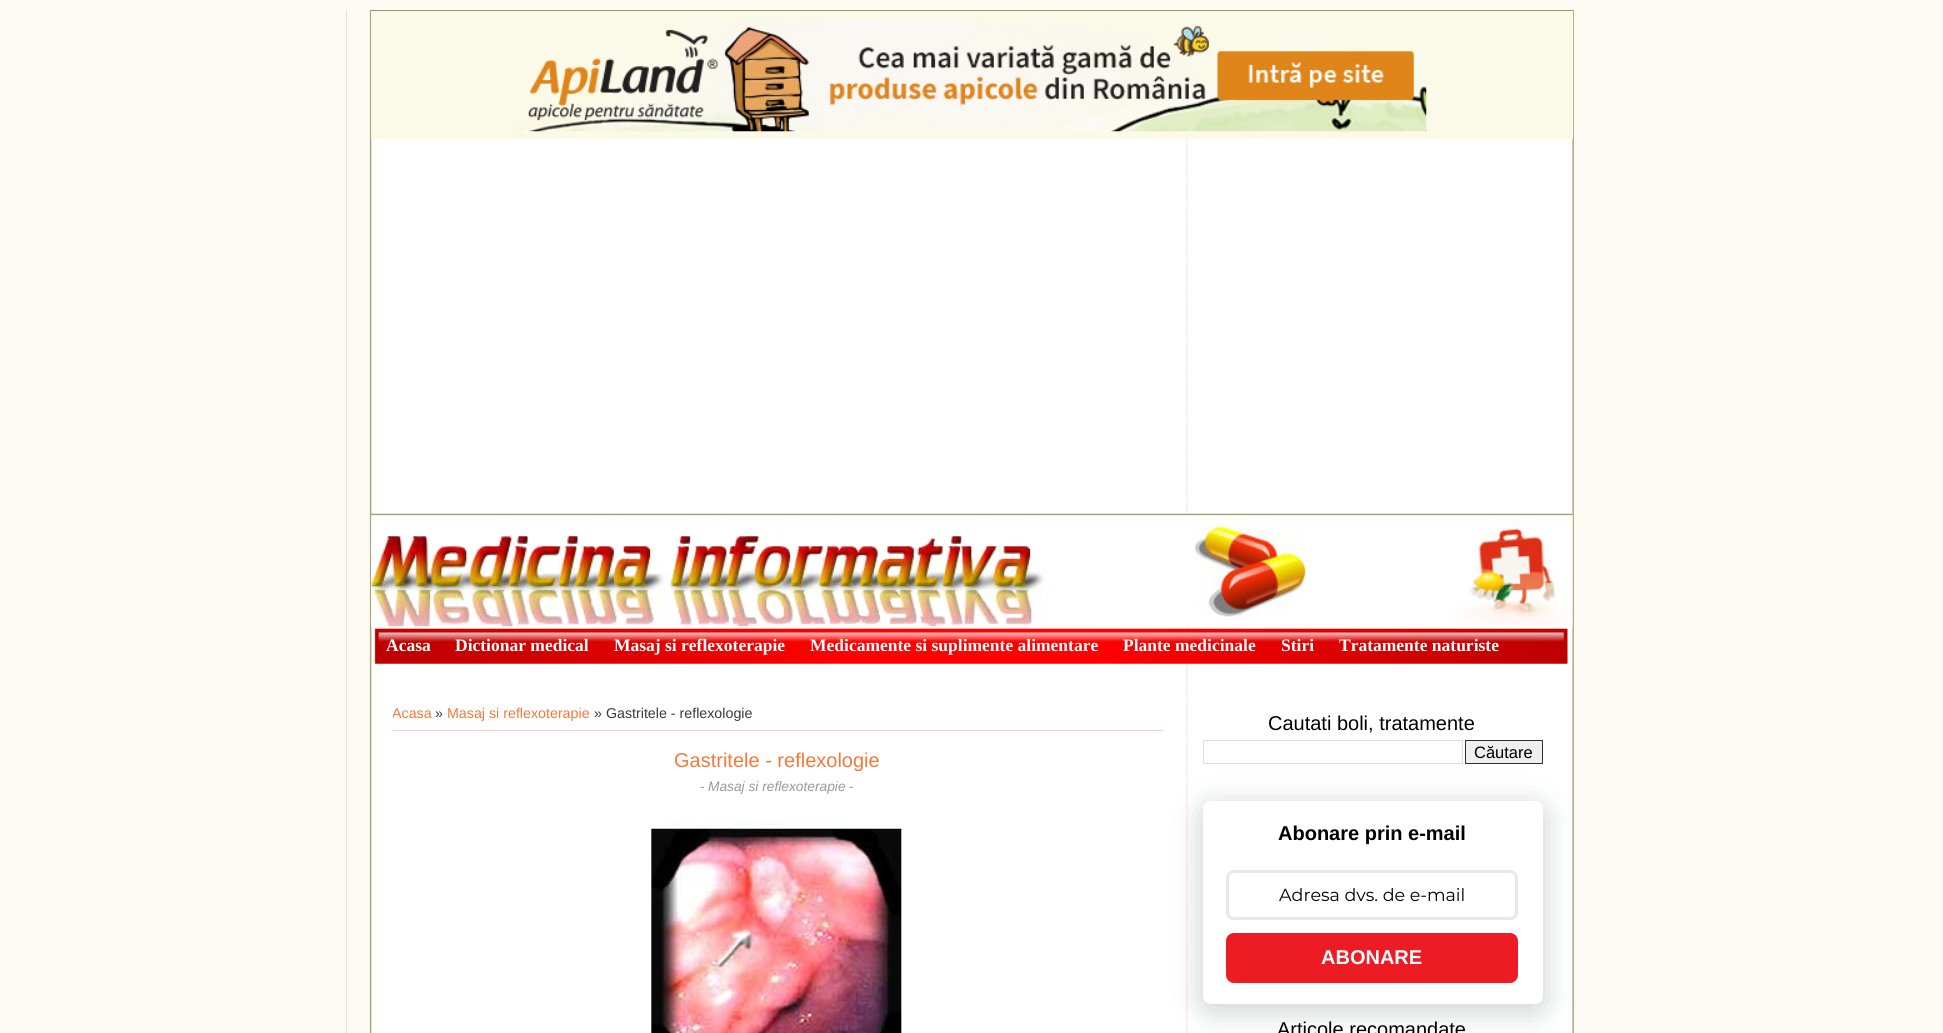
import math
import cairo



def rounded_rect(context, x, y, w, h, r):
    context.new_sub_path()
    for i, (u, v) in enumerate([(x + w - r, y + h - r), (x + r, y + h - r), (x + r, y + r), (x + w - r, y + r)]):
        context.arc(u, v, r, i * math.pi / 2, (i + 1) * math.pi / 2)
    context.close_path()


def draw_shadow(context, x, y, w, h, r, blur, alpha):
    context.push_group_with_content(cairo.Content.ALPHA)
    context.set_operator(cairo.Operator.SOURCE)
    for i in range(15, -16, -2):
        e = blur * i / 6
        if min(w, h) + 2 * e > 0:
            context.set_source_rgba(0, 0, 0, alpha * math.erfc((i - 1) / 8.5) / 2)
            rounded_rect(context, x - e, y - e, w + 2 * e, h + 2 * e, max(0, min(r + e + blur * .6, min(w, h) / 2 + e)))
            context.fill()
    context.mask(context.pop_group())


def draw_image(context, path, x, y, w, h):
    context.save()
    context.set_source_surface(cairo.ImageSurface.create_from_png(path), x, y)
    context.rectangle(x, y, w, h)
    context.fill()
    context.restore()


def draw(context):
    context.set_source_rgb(253 / 255, 249 / 255, 243 / 255)
    context.paint()
    draw_image(context, "images/1.png", 346, 10, 1228, 1023)
    context.set_source_rgb(251 / 255, 250 / 255, 232 / 255)
    context.rectangle(371, 11, 1202, 128)
    context.fill()
    context.set_source_rgb(153 / 255, 153 / 255, 102 / 255)
    context.rectangle(371, 10, 1202, 1)
    context.fill()
    draw_image(context, "images/2.png", 517, 19, 910, 113)
    draw_image(context, "images/3.png", 371, 513, 1202, 114)
    draw_image(context, "images/4.png", 374, 628, 1194, 36)
    context.set_source_rgb(1, 204 / 255, 204 / 255)
    context.rectangle(393, 730, 770, 1)
    context.fill()
    draw_image(context, "images/5.png", 651, 821, 251, 212)
    context.rectangle(1203.5, 740.5, 259, 23)
    context.set_source_rgb(221 / 255, 221 / 255, 221 / 255)
    context.set_line_width(1)
    context.stroke()
    context.set_source_rgb(239 / 255, 239 / 255, 239 / 255)
    context.rectangle(1465.5, 740.5, 77, 23)
    context.fill_preserve()
    context.set_source_rgb(48 / 255, 48 / 255, 48 / 255)
    context.stroke()
    context.set_source_rgb(34 / 255, 60 / 255, 47 / 255)
    draw_shadow(context, 1203, 808, 340, 202, 8, 15.5, 0.25)
    context.set_source_rgb(1, 1, 1)
    rounded_rect(context, 1203, 801, 340, 203, 8)
    context.fill()
    rounded_rect(context, 1227.5, 871.5, 289, 47, 6.5)
    context.set_source_rgb(233 / 255, 232 / 255, 232 / 255)
    context.set_line_width(3)
    context.stroke()
    context.set_source_rgb(237 / 255, 28 / 255, 36 / 255)
    rounded_rect(context, 1226, 933, 292, 50, 8)
    context.fill()
    context.select_font_face("Liberation Serif", cairo.FontSlant.NORMAL, cairo.FontWeight.BOLD)
    context.set_font_size(17.5)
    context.set_source_rgb(1, 1, 1)
    context.move_to(386, 651)
    context.show_text("Acasa")
    context.move_to(455, 651)
    context.show_text("Dictionar medical")
    context.move_to(614, 651)
    context.show_text("Masaj si reflexoterapie")
    context.move_to(810, 651)
    context.show_text("Medicamente si suplimente alimentare")
    context.move_to(1123, 651)
    context.show_text("Plante medicinale")
    context.move_to(1281, 651)
    context.show_text("Stiri")
    context.move_to(1339, 651)
    context.show_text("Tratamente naturiste")
    context.save()
    context.rectangle(393, 698, 800, 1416)
    context.clip()
    context.select_font_face("Liberation Sans")
    context.set_font_size(14.25)
    context.set_source_rgb(244 / 255, 121 / 255, 58 / 255)
    context.move_to(392, 718)
    context.show_text("Acasa")
    context.restore()
    context.select_font_face("Liberation Sans")
    context.set_font_size(14.25)
    context.set_source_rgb(58 / 255, 58 / 255, 58 / 255)
    context.move_to(435, 718)
    context.show_text("»")
    context.set_source_rgb(244 / 255, 121 / 255, 58 / 255)
    context.move_to(447, 718)
    context.show_text("Masaj si reflexoterapie")
    context.set_source_rgb(58 / 255, 58 / 255, 58 / 255)
    context.move_to(594, 718)
    context.show_text("» Gastritele - reflexologie")
    context.set_font_size(20)
    context.set_source_rgb(244 / 255, 121 / 255, 58 / 255)
    context.move_to(674, 767)
    context.show_text("Gastritele - reflexologie")
    context.set_font_size(13.75)
    context.set_source_rgb(153 / 255, 153 / 255, 153 / 255)
    context.move_to(700, 791)
    context.show_text("-")
    context.select_font_face("Liberation Sans", cairo.FontSlant.ITALIC)
    context.move_to(708, 791)
    context.show_text("Masaj si reflexoterapie")
    context.select_font_face("Liberation Sans")
    context.move_to(849, 791)
    context.show_text("-")
    context.set_font_size(20)
    context.set_source_rgb(0, 0, 0)
    context.move_to(1268, 730)
    context.show_text("Cautati boli, tratamente")
    context.set_font_size(16.5)
    context.move_to(1474, 758)
    context.show_text("Căutare")
    context.select_font_face("Liberation Sans", cairo.FontSlant.NORMAL, cairo.FontWeight.BOLD)
    context.set_font_size(20)
    context.move_to(1278, 840)
    context.show_text("Abonare prin e-mail")
    context.select_font_face("Montserrat")
    context.set_font_size(17.5)
    context.move_to(1279, 901)
    context.show_text("Adresa dvs. de e-mail")
    context.select_font_face("Liberation Sans", cairo.FontSlant.NORMAL, cairo.FontWeight.BOLD)
    context.set_font_size(20)
    context.set_source_rgb(1, 1, 1)
    context.move_to(1321, 964)
    context.show_text("ABONARE")
    context.select_font_face("Liberation Sans")
    context.set_source_rgb(0, 0, 0)
    context.move_to(1277, 1036)
    context.show_text("Articole recomandate")


surface = cairo.ImageSurface(cairo.Format.RGB24, 1943, 1033)
context = cairo.Context(surface)
options = cairo.FontOptions()
options.set_hint_metrics(cairo.HintMetrics.OFF)
options.set_hint_style(cairo.HintStyle.NONE)
context.set_font_options(options)
context.set_miter_limit(4)
draw(context)
surface.write_to_png("out.png")
